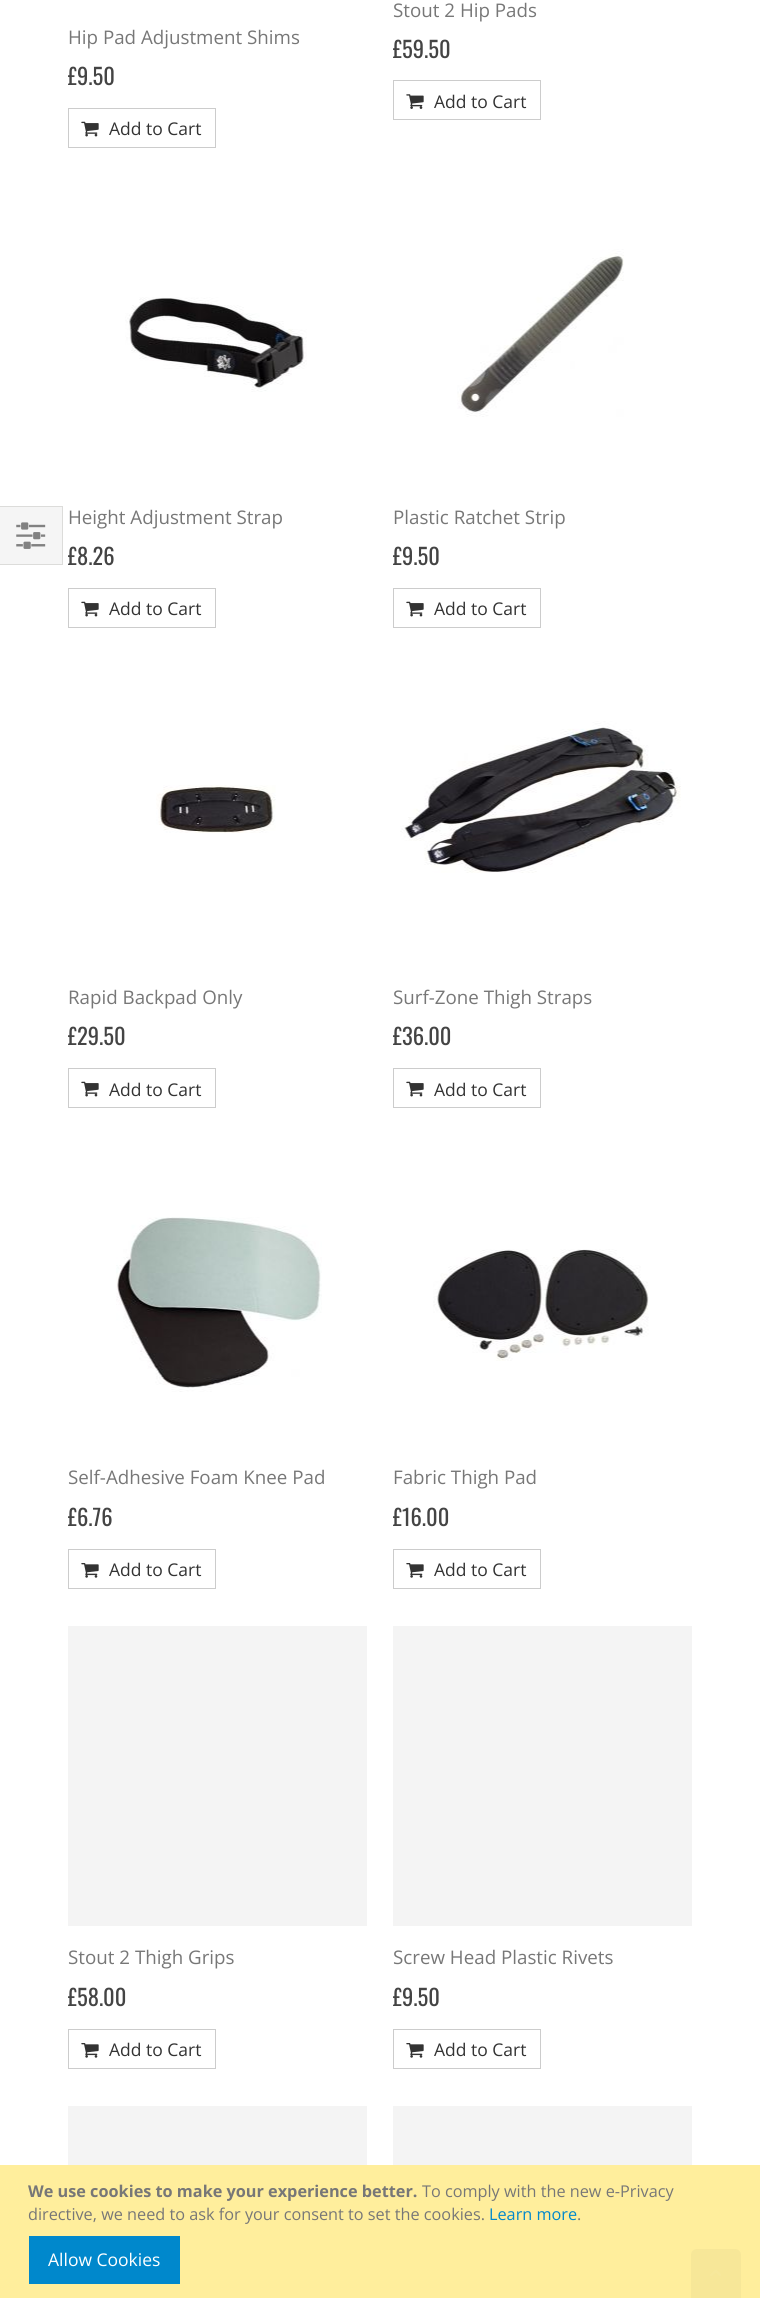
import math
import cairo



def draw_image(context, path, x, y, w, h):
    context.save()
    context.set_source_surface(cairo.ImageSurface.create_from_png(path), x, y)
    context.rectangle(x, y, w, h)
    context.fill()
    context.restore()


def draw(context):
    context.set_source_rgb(1, 1, 1)
    context.paint()
    context.set_source_rgb(245 / 255, 245 / 255, 245 / 255)
    context.rectangle(-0.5, 506.5, 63, 58)
    context.fill_preserve()
    context.set_source_rgb(220 / 255, 220 / 255, 218 / 255)
    context.set_line_width(1)
    context.stroke()
    draw_image(context, "images/1.png", 16, 522, 30, 27)
    context.rectangle(68.5, 108.5, 147, 39)
    context.set_source_rgb(204 / 255, 204 / 255, 204 / 255)
    context.stroke()
    draw_image(context, "images/2.png", 81, 121, 18, 16)
    context.rectangle(393.5, 80.5, 147, 39)
    context.stroke()
    draw_image(context, "images/3.png", 406, 94, 18, 15)
    draw_image(context, "images/4.png", 125, 297, 182, 95)
    context.rectangle(68.5, 588.5, 147, 39)
    context.stroke()
    draw_image(context, "images/2.png", 81, 601, 18, 16)
    draw_image(context, "images/5.png", 457, 249, 167, 168)
    context.rectangle(393.5, 588.5, 147, 39)
    context.stroke()
    draw_image(context, "images/2.png", 406, 601, 18, 16)
    draw_image(context, "images/6.png", 156, 785, 120, 48)
    context.rectangle(68.5, 1068.5, 147, 39)
    context.stroke()
    draw_image(context, "images/2.png", 81, 1081, 18, 16)
    draw_image(context, "images/7.png", 400, 721, 281, 152)
    context.rectangle(393.5, 1068.5, 147, 39)
    context.stroke()
    draw_image(context, "images/2.png", 406, 1081, 18, 16)
    draw_image(context, "images/8.png", 116, 1217, 206, 175)
    context.rectangle(68.5, 1549.5, 147, 39)
    context.stroke()
    draw_image(context, "images/9.png", 81, 1563, 18, 15)
    draw_image(context, "images/10.png", 433, 1249, 216, 112)
    context.rectangle(393.5, 1549.5, 147, 39)
    context.stroke()
    draw_image(context, "images/9.png", 406, 1563, 18, 15)
    context.set_source_rgb(244 / 255, 244 / 255, 244 / 255)
    context.rectangle(68, 1626, 299, 300)
    context.fill()
    context.rectangle(68.5, 2029.5, 147, 39)
    context.set_source_rgb(204 / 255, 204 / 255, 204 / 255)
    context.stroke()
    draw_image(context, "images/9.png", 81, 2043, 18, 15)
    context.set_source_rgb(244 / 255, 244 / 255, 244 / 255)
    context.rectangle(393, 1626, 299, 300)
    context.fill()
    context.rectangle(393.5, 2029.5, 147, 39)
    context.set_source_rgb(204 / 255, 204 / 255, 204 / 255)
    context.stroke()
    draw_image(context, "images/9.png", 406, 2043, 18, 15)
    context.set_source_rgb(244 / 255, 244 / 255, 244 / 255)
    context.rectangle(68, 2106, 299, 59)
    context.fill()
    context.rectangle(393, 2106, 299, 59)
    context.fill()
    context.set_source_rgb(1, 238 / 255, 156 / 255)
    context.rectangle(0, 2165, 760, 133)
    context.fill()
    context.set_source_rgb(247 / 255, 231 / 255, 152 / 255)
    context.new_path()
    context.move_to(697, 2249)
    context.line_to(735, 2249)
    context.curve_to(738.5, 2249, 741, 2251.5, 741, 2255)
    context.line_to(741, 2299)
    context.line_to(691, 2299)
    context.line_to(691, 2255)
    context.curve_to(691, 2251.5, 693.5, 2249, 697, 2249)
    context.close_path()
    context.fill()
    draw_image(context, "images/11.png", 710, 2270, 11, 6)
    context.set_source_rgb(0, 136 / 255, 204 / 255)
    context.rectangle(29, 2236, 151, 48)
    context.fill()
    context.select_font_face("Open Sans")
    context.set_font_size(18.75)
    context.set_source_rgb(119 / 255, 119 / 255, 119 / 255)
    context.move_to(68, 44)
    context.show_text("Hip Pad Adjustment Shims")
    context.select_font_face("Oswald")
    context.set_font_size(22.5)
    context.set_source_rgb(68 / 255, 68 / 255, 68 / 255)
    context.move_to(68, 85)
    context.show_text("£9.50")
    context.select_font_face("Open Sans")
    context.set_font_size(17.5)
    context.set_source_rgb(51 / 255, 51 / 255, 51 / 255)
    context.move_to(109, 135)
    context.show_text("Add to Cart")
    context.set_font_size(18.75)
    context.set_source_rgb(119 / 255, 119 / 255, 119 / 255)
    context.move_to(393, 17)
    context.show_text("Stout 2 Hip Pads")
    context.select_font_face("Oswald")
    context.set_font_size(22.5)
    context.set_source_rgb(68 / 255, 68 / 255, 68 / 255)
    context.move_to(393, 58)
    context.show_text("£59.50")
    context.select_font_face("Open Sans")
    context.set_font_size(17.5)
    context.set_source_rgb(51 / 255, 51 / 255, 51 / 255)
    context.move_to(434, 108)
    context.show_text("Add to Cart")
    context.set_font_size(18.75)
    context.set_source_rgb(119 / 255, 119 / 255, 119 / 255)
    context.move_to(68, 524)
    context.show_text("Height Adjustment Strap")
    context.select_font_face("Oswald")
    context.set_font_size(22.5)
    context.set_source_rgb(68 / 255, 68 / 255, 68 / 255)
    context.move_to(68, 565)
    context.show_text("£8.26")
    context.select_font_face("Open Sans")
    context.set_font_size(17.5)
    context.set_source_rgb(51 / 255, 51 / 255, 51 / 255)
    context.move_to(109, 615)
    context.show_text("Add to Cart")
    context.set_font_size(18.75)
    context.set_source_rgb(119 / 255, 119 / 255, 119 / 255)
    context.move_to(393, 524)
    context.show_text("Plastic Ratchet Strip")
    context.select_font_face("Oswald")
    context.set_font_size(22.5)
    context.set_source_rgb(68 / 255, 68 / 255, 68 / 255)
    context.move_to(393, 565)
    context.show_text("£9.50")
    context.select_font_face("Open Sans")
    context.set_font_size(17.5)
    context.set_source_rgb(51 / 255, 51 / 255, 51 / 255)
    context.move_to(434, 615)
    context.show_text("Add to Cart")
    context.set_font_size(18.75)
    context.set_source_rgb(119 / 255, 119 / 255, 119 / 255)
    context.move_to(68, 1004)
    context.show_text("Rapid Backpad Only")
    context.select_font_face("Oswald")
    context.set_font_size(22.5)
    context.set_source_rgb(68 / 255, 68 / 255, 68 / 255)
    context.move_to(68, 1045)
    context.show_text("£29.50")
    context.select_font_face("Open Sans")
    context.set_font_size(17.5)
    context.set_source_rgb(51 / 255, 51 / 255, 51 / 255)
    context.move_to(109, 1096)
    context.show_text("Add to Cart")
    context.set_font_size(18.75)
    context.set_source_rgb(119 / 255, 119 / 255, 119 / 255)
    context.move_to(393, 1004)
    context.show_text("Surf-Zone Thigh Straps")
    context.select_font_face("Oswald")
    context.set_font_size(22.5)
    context.set_source_rgb(68 / 255, 68 / 255, 68 / 255)
    context.move_to(393, 1045)
    context.show_text("£36.00")
    context.select_font_face("Open Sans")
    context.set_font_size(17.5)
    context.set_source_rgb(51 / 255, 51 / 255, 51 / 255)
    context.move_to(434, 1096)
    context.show_text("Add to Cart")
    context.set_font_size(18.75)
    context.set_source_rgb(119 / 255, 119 / 255, 119 / 255)
    context.move_to(68, 1484)
    context.show_text("Self-Adhesive Foam Knee Pad")
    context.select_font_face("Oswald")
    context.set_font_size(22.5)
    context.set_source_rgb(68 / 255, 68 / 255, 68 / 255)
    context.move_to(68, 1526)
    context.show_text("£6.76")
    context.select_font_face("Open Sans")
    context.set_font_size(17.5)
    context.set_source_rgb(51 / 255, 51 / 255, 51 / 255)
    context.move_to(109, 1576)
    context.show_text("Add to Cart")
    context.set_font_size(18.75)
    context.set_source_rgb(119 / 255, 119 / 255, 119 / 255)
    context.move_to(393, 1484)
    context.show_text("Fabric Thigh Pad")
    context.select_font_face("Oswald")
    context.set_font_size(22.5)
    context.set_source_rgb(68 / 255, 68 / 255, 68 / 255)
    context.move_to(393, 1526)
    context.show_text("£16.00")
    context.select_font_face("Open Sans")
    context.set_font_size(17.5)
    context.set_source_rgb(51 / 255, 51 / 255, 51 / 255)
    context.move_to(434, 1576)
    context.show_text("Add to Cart")
    context.set_font_size(18.75)
    context.set_source_rgb(119 / 255, 119 / 255, 119 / 255)
    context.move_to(68, 1964)
    context.show_text("Stout 2 Thigh Grips")
    context.select_font_face("Oswald")
    context.set_font_size(22.5)
    context.set_source_rgb(68 / 255, 68 / 255, 68 / 255)
    context.move_to(68, 2006)
    context.show_text("£58.00")
    context.select_font_face("Open Sans")
    context.set_font_size(17.5)
    context.set_source_rgb(51 / 255, 51 / 255, 51 / 255)
    context.move_to(109, 2056)
    context.show_text("Add to Cart")
    context.set_font_size(18.75)
    context.set_source_rgb(119 / 255, 119 / 255, 119 / 255)
    context.move_to(393, 1964)
    context.show_text("Screw Head Plastic Rivets")
    context.select_font_face("Oswald")
    context.set_font_size(22.5)
    context.set_source_rgb(68 / 255, 68 / 255, 68 / 255)
    context.move_to(393, 2006)
    context.show_text("£9.50")
    context.select_font_face("Open Sans")
    context.set_font_size(17.5)
    context.set_source_rgb(51 / 255, 51 / 255, 51 / 255)
    context.move_to(434, 2056)
    context.show_text("Add to Cart")
    context.select_font_face("Open Sans", cairo.FontSlant.NORMAL, cairo.FontWeight.BOLD)
    context.set_font_size(16.25)
    context.set_source_rgb(119 / 255, 119 / 255, 119 / 255)
    context.move_to(28, 2197)
    context.show_text("We use cookies to make your experience better.")
    context.select_font_face("Open Sans")
    context.move_to(422, 2197)
    context.show_text("To comply with the new e-Privacy")
    context.move_to(28, 2220)
    context.show_text("directive, we need to ask for your consent to set the cookies.")
    context.set_source_rgb(0, 136 / 255, 204 / 255)
    context.move_to(489, 2220)
    context.show_text("Learn more")
    context.set_source_rgb(119 / 255, 119 / 255, 119 / 255)
    context.move_to(577, 2220)
    context.show_text(".")
    context.set_font_size(17.5)
    context.set_source_rgb(1, 1, 1)
    context.move_to(48, 2266)
    context.show_text("Allow Cookies")


surface = cairo.ImageSurface(cairo.Format.RGB24, 760, 2298)
context = cairo.Context(surface)
options = cairo.FontOptions()
options.set_hint_metrics(cairo.HintMetrics.OFF)
options.set_hint_style(cairo.HintStyle.NONE)
context.set_font_options(options)
context.set_miter_limit(4)
draw(context)
surface.write_to_png("out.png")
